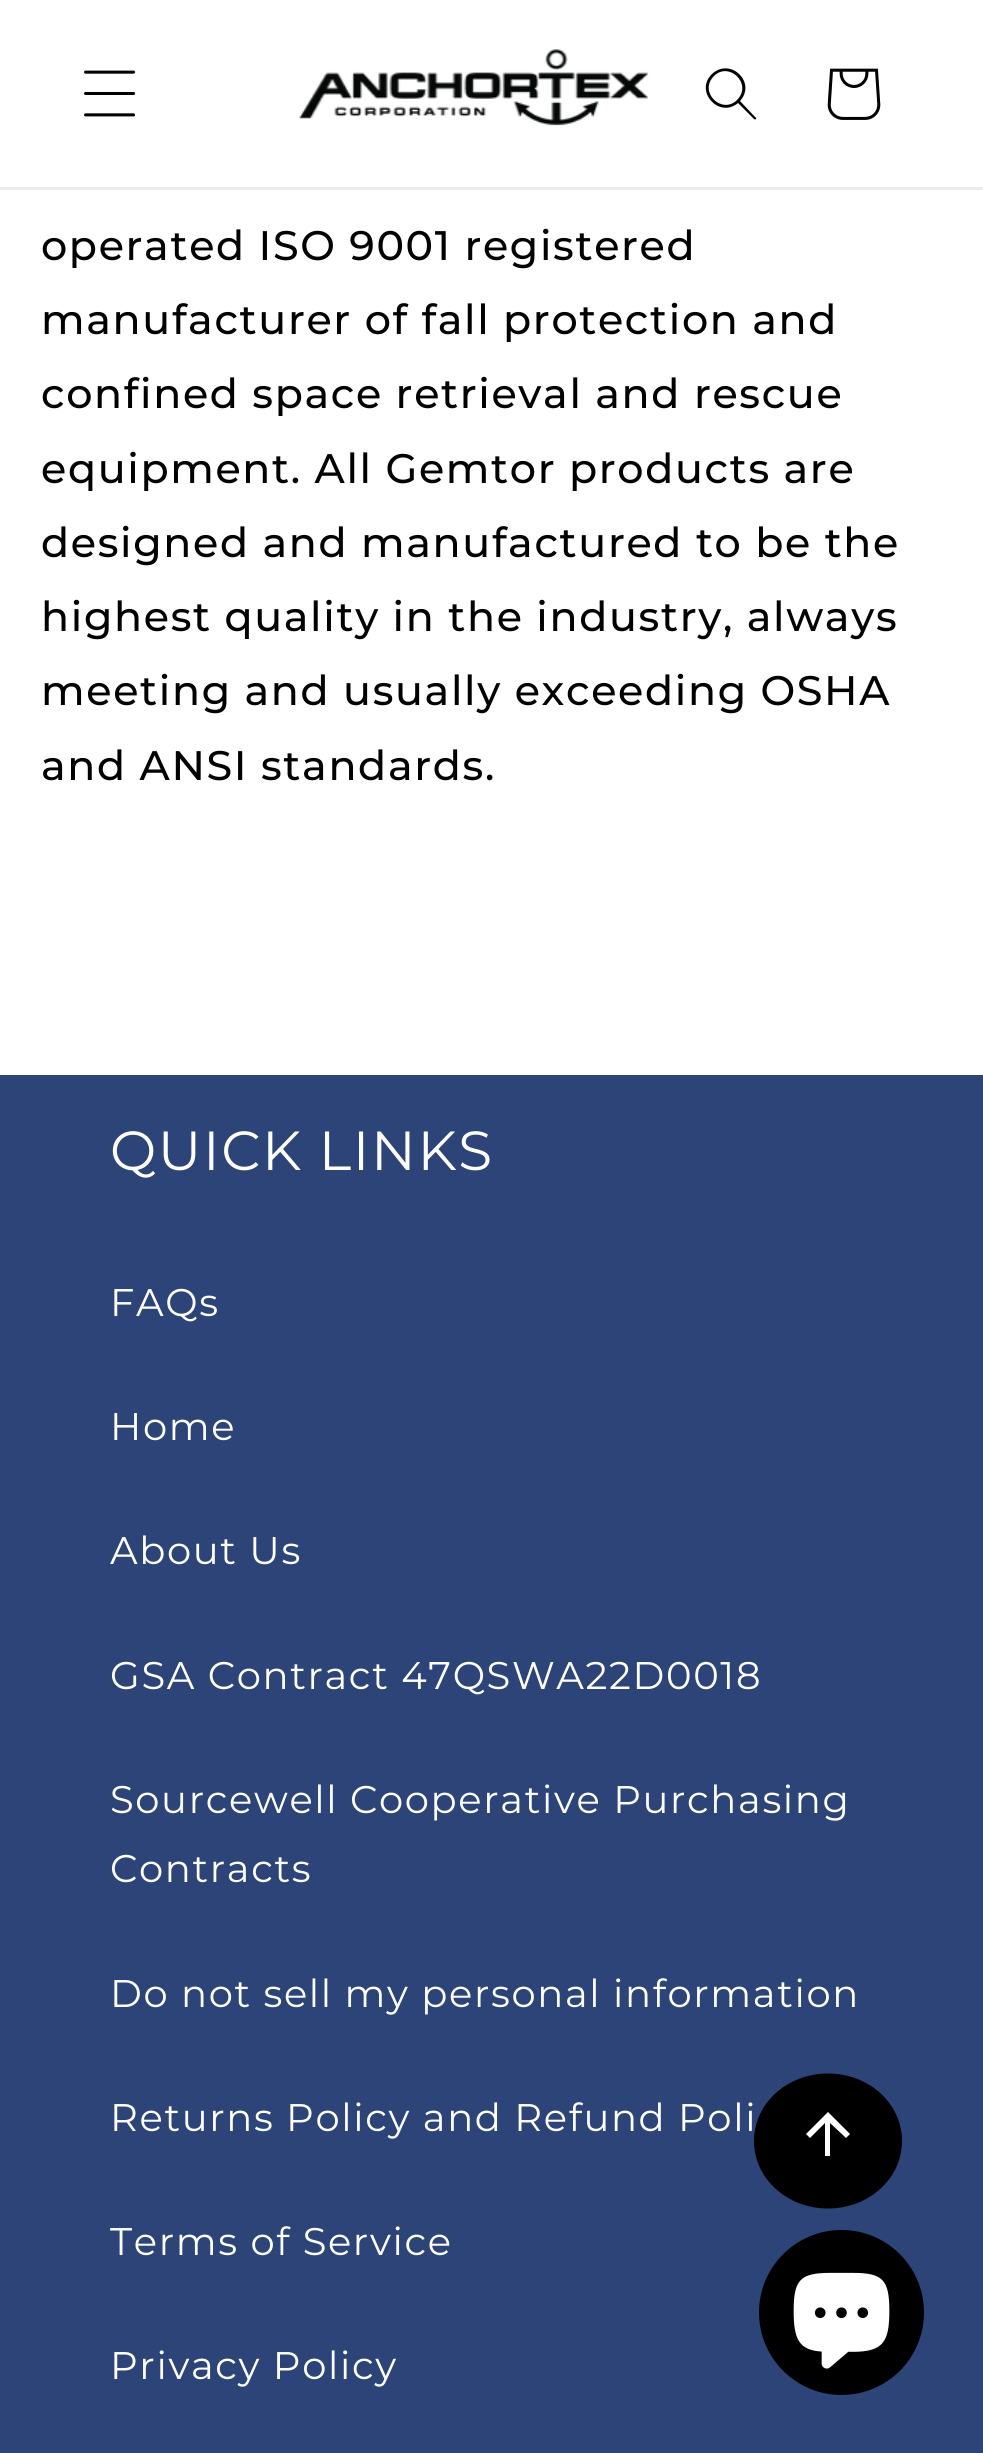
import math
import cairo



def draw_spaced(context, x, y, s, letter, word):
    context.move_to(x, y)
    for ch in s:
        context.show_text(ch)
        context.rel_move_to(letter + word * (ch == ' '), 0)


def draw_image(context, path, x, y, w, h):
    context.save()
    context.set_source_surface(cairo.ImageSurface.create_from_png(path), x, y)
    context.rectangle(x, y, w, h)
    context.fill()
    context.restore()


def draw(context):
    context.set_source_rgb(1, 1, 1)
    context.paint()
    context.set_source_rgb(235 / 255, 235 / 255, 235 / 255)
    context.rectangle(0, 187, 983, 3)
    context.fill()
    draw_image(context, "images/1.png", 84, 70, 52, 47)
    draw_image(context, "images/2.png", 299, 49, 350, 77)
    context.set_source_rgb(0, 0, 0)
    context.set_fill_rule(cairo.FillRule.EVEN_ODD)
    context.new_path()
    context.move_to(737, 100)
    context.curve_to(722, 115, 698, 92, 714, 76)
    context.curve_to(729, 61, 753, 84, 737, 100)
    context.move_to(738, 103)
    context.curve_to(719, 119, 694, 91, 712, 74)
    context.curve_to(730, 57, 757, 82, 740, 101)
    context.line_to(756, 118)
    context.curve_to(757, 119, 755, 120, 754, 119)
    context.close_path()
    context.fill()
    draw_image(context, "images/3.png", 827, 68, 54, 52)
    context.set_source_rgb(45 / 255, 68 / 255, 121 / 255)
    context.rectangle(0, 1075, 983, 1378)
    context.fill()
    context.set_source_rgb(0, 0, 0)
    context.new_path()
    context.move_to(828, 2073.5)
    context.curve_to(869, 2073.5, 902, 2103.5, 902, 2141)
    context.curve_to(902, 2178.5, 869, 2208.5, 828, 2208.5)
    context.curve_to(787, 2208.5, 754, 2178.5, 754, 2141)
    context.curve_to(754, 2103.5, 787, 2073.5, 828, 2073.5)
    context.close_path()
    context.fill()
    context.set_source_rgb(1, 1, 1)
    context.set_fill_rule(cairo.FillRule.WINDING)
    context.new_path()
    context.move_to(806, 2134)
    context.line_to(810, 2138)
    context.line_to(825, 2123)
    context.line_to(825, 2156)
    context.line_to(830, 2156)
    context.line_to(830, 2123)
    context.line_to(846, 2138)
    context.line_to(850, 2134)
    context.line_to(828, 2112)
    context.close_path()
    context.fill()
    context.set_source_rgb(0, 0, 0)
    context.arc(841.5, 2312.5, 82.5, 0, 2 * math.pi)
    context.fill()
    draw_image(context, "images/4.png", 793, 2272, 97, 97)
    context.select_font_face("Montserrat Medium")
    context.set_font_size(41.25)
    draw_spaced(context, 41, 260, "operated ISO 9001 registered", 1.65, 0)
    draw_spaced(context, 41, 334, "manufacturer of fall protection and", 1.65, 0)
    draw_spaced(context, 41, 408, "confined space retrieval and rescue", 1.65, 0)
    draw_spaced(context, 41, 483, "equipment. All Gemtor products are", 1.65, 0)
    draw_spaced(context, 41, 557, "designed and manufactured to be the", 1.65, 0)
    draw_spaced(context, 41, 631, "highest quality in the industry, always", 1.65, 0)
    draw_spaced(context, 41, 705, "meeting and usually exceeding OSHA", 1.65, 0)
    draw_spaced(context, 41, 780, "and ANSI standards.", 1.65, 0)
    context.select_font_face("Montserrat")
    context.set_font_size(55)
    context.set_source_rgb(1, 1, 1)
    draw_spaced(context, 110, 1170, "QUICK LINKS", 1.65, 0)
    context.set_font_size(38.5)
    draw_spaced(context, 110, 1316, "FAQs", 1.65, 0)
    draw_spaced(context, 110, 1440, "Home", 1.65, 0)
    draw_spaced(context, 110, 1564, "About Us", 1.65, 0)
    draw_spaced(context, 110, 1689, "GSA Contract 47QSWA22D0018", 1.65, 0)
    draw_spaced(context, 110, 1813, "Sourcewell Cooperative Purchasing", 1.65, 0)
    draw_spaced(context, 110, 1882, "Contracts", 1.65, 0)
    draw_spaced(context, 110, 2007, "Do not sell my personal information", 1.65, 0)
    draw_spaced(context, 110, 2131, "Returns Policy and Refund Poli", 1.65, 0)
    draw_spaced(context, 110, 2255, "Terms of Service", 1.65, 0)
    draw_spaced(context, 110, 2379, "Privacy Policy", 1.65, 0)


surface = cairo.ImageSurface(cairo.Format.RGB24, 983, 2453)
context = cairo.Context(surface)
options = cairo.FontOptions()
options.set_hint_metrics(cairo.HintMetrics.OFF)
options.set_hint_style(cairo.HintStyle.NONE)
context.set_font_options(options)
context.set_miter_limit(4)
draw(context)
surface.write_to_png("out.png")
